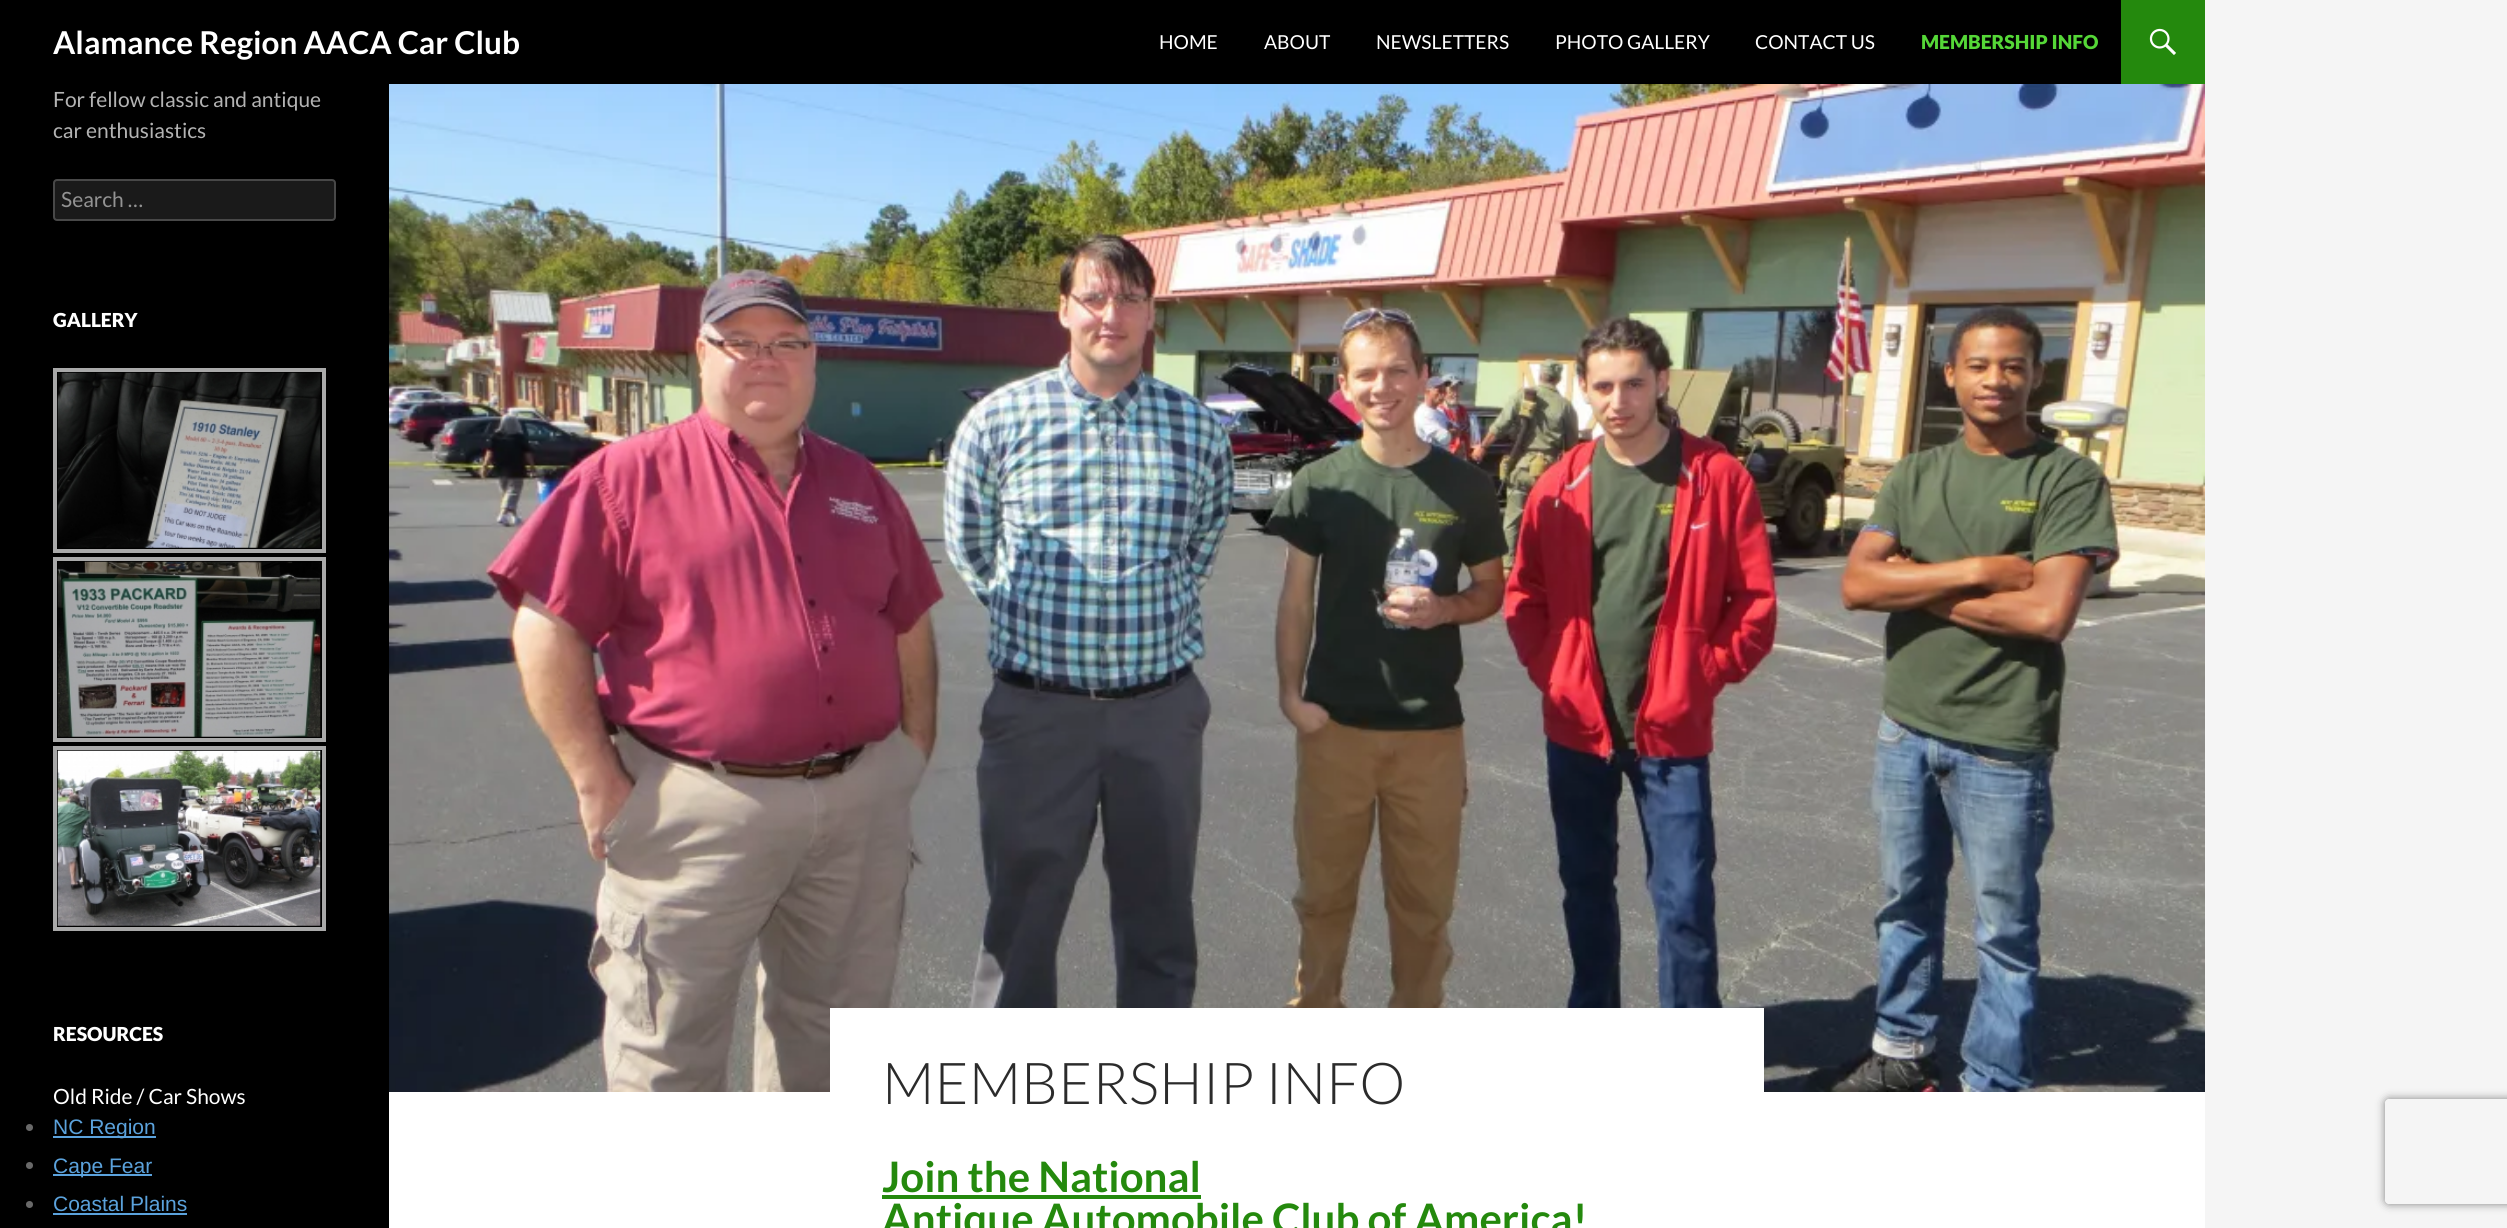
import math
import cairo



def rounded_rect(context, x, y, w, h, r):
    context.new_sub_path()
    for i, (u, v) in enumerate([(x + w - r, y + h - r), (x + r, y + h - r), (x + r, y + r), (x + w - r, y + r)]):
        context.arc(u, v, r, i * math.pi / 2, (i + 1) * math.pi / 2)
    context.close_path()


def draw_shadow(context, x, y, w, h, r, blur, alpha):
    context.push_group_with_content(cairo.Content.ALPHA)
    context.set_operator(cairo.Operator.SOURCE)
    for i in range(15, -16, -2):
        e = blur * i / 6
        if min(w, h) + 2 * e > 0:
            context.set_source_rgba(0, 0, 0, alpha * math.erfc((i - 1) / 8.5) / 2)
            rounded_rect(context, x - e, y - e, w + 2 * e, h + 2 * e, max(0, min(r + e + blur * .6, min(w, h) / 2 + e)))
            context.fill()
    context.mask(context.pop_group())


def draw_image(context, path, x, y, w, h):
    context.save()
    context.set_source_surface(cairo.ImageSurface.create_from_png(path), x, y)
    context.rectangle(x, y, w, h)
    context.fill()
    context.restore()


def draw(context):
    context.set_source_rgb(245 / 255, 245 / 255, 245 / 255)
    context.paint()
    context.set_source_rgb(1, 1, 1)
    context.rectangle(389, 1092, 1816, 136)
    context.fill()
    context.set_source_rgb(0, 0, 0)
    context.rectangle(0, 0, 2121, 84)
    context.fill()
    context.set_source_rgb(36 / 255, 137 / 255, 13 / 255)
    context.rectangle(2121, 0, 84, 84)
    context.fill()
    draw_image(context, "images/1.png", 2149, 28, 27, 27)
    context.set_source_rgb(0, 0, 0)
    context.rectangle(0, 84, 389, 1144)
    context.fill()
    context.set_source_rgb(26 / 255, 26 / 255, 26 / 255)
    rounded_rect(context, 53, 179, 283, 42, 4)
    context.fill()
    rounded_rect(context, 54, 180, 281, 40, 3)
    context.set_source_rgba(1, 1, 1, 0.2)
    context.stroke()
    context.rectangle(55, 370, 269, 181)
    context.set_source_rgb(169 / 255, 169 / 255, 169 / 255)
    context.set_line_width(4)
    context.stroke()
    draw_image(context, "images/2.png", 57, 372, 264, 176)
    context.rectangle(55, 559, 269, 181)
    context.stroke()
    draw_image(context, "images/3.png", 57, 561, 264, 176)
    context.rectangle(55, 748, 269, 181)
    context.stroke()
    draw_image(context, "images/4.png", 57, 750, 264, 176)
    context.set_source_rgb(105 / 255, 105 / 255, 105 / 255)
    context.arc(29.5, 1127.5, 3.5, 0, 2 * math.pi)
    context.fill()
    context.set_source_rgb(91 / 255, 162 / 255, 220 / 255)
    context.rectangle(53, 1136, 103, 2)
    context.fill()
    context.set_source_rgb(105 / 255, 105 / 255, 105 / 255)
    context.arc(29.5, 1165.5, 3.5, 0, 2 * math.pi)
    context.fill()
    context.set_source_rgb(91 / 255, 162 / 255, 220 / 255)
    context.rectangle(53, 1174, 99, 2)
    context.fill()
    context.set_source_rgb(105 / 255, 105 / 255, 105 / 255)
    context.arc(29.5, 1204.5, 3.5, 0, 2 * math.pi)
    context.fill()
    context.set_source_rgb(91 / 255, 162 / 255, 220 / 255)
    context.rectangle(53, 1213, 134, 2)
    context.fill()
    draw_image(context, "images/5.png", 389, 84, 1816, 1008)
    context.set_source_rgb(1, 1, 1)
    context.rectangle(830, 1008, 934, 84)
    context.fill()
    context.set_source_rgb(36 / 255, 137 / 255, 13 / 255)
    context.rectangle(882, 1195, 319, 4)
    context.fill()
    context.save()
    context.set_fill_rule(cairo.FillRule.EVEN_ODD)
    context.new_path()
    context.move_to(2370, 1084)
    context.line_to(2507, 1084)
    context.line_to(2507, 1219)
    context.line_to(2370, 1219)
    context.close_path()
    context.move_to(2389, 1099)
    context.line_to(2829, 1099)
    context.curve_to(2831, 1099, 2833, 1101, 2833, 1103)
    context.line_to(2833, 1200)
    context.curve_to(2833, 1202, 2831, 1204, 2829, 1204)
    context.line_to(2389, 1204)
    context.curve_to(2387, 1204, 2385, 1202, 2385, 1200)
    context.line_to(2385, 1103)
    context.curve_to(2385, 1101, 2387, 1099, 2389, 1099)
    context.close_path()
    context.clip()
    context.set_source_rgb(128 / 255, 128 / 255, 128 / 255)
    draw_shadow(context, 2385, 1099, 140, 105, 4, 4.5, 1)
    context.restore()
    context.select_font_face("Lato", cairo.FontSlant.NORMAL, cairo.FontWeight.BOLD)
    context.set_font_size(31.5)
    context.set_source_rgb(1, 1, 1)
    context.move_to(53, 54)
    context.show_text("Alamance Region AACA Car Club")
    context.select_font_face("Lato")
    context.set_font_size(19.25)
    context.move_to(1159, 49)
    context.show_text("HOME")
    context.move_to(1264, 49)
    context.show_text("ABOUT")
    context.move_to(1376, 49)
    context.show_text("NEWSLETTERS")
    context.move_to(1555, 49)
    context.show_text("PHOTO GALLERY")
    context.move_to(1755, 49)
    context.show_text("CONTACT US")
    context.select_font_face("Lato Black")
    context.set_source_rgb(85 / 255, 215 / 255, 55 / 255)
    context.move_to(1921, 49)
    context.show_text("MEMBERSHIP INFO")
    context.select_font_face("Lato")
    context.set_font_size(21)
    context.set_source_rgb(179 / 255, 179 / 255, 179 / 255)
    context.move_to(53, 107)
    context.show_text("For fellow classic and antique")
    context.move_to(53, 138)
    context.show_text("car enthusiastics")
    context.set_source_rgb(147 / 255, 147 / 255, 147 / 255)
    context.move_to(61, 207)
    context.show_text("Search …")
    context.select_font_face("Lato Black")
    context.set_font_size(19.25)
    context.set_source_rgb(1, 1, 1)
    context.move_to(53, 327)
    context.show_text("GALLERY")
    context.move_to(53, 1041)
    context.show_text("RESOURCES")
    context.select_font_face("Lato")
    context.set_font_size(21)
    context.move_to(53, 1104)
    context.show_text("Old Ride / Car Shows")
    context.select_font_face("Liberation Sans")
    context.set_source_rgb(91 / 255, 162 / 255, 220 / 255)
    context.move_to(53, 1134)
    context.show_text("NC Region")
    context.move_to(53, 1173)
    context.show_text("Cape Fear")
    context.move_to(53, 1211)
    context.show_text("Coastal Plains")
    context.select_font_face("Lato Light")
    context.set_font_size(57.75)
    context.set_source_rgb(43 / 255, 43 / 255, 43 / 255)
    context.move_to(882, 1104)
    context.show_text("MEMBERSHIP INFO")
    context.select_font_face("Lato", cairo.FontSlant.NORMAL, cairo.FontWeight.BOLD)
    context.set_font_size(42)
    context.set_source_rgb(36 / 255, 137 / 255, 13 / 255)
    context.move_to(882, 1192)
    context.show_text("Join the National")
    context.move_to(882, 1234)
    context.show_text("Antique Automobile Club of America!")


surface = cairo.ImageSurface(cairo.Format.RGB24, 2507, 1228)
context = cairo.Context(surface)
options = cairo.FontOptions()
options.set_hint_metrics(cairo.HintMetrics.OFF)
options.set_hint_style(cairo.HintStyle.NONE)
context.set_font_options(options)
context.set_miter_limit(4)
draw(context)
surface.write_to_png("out.png")
